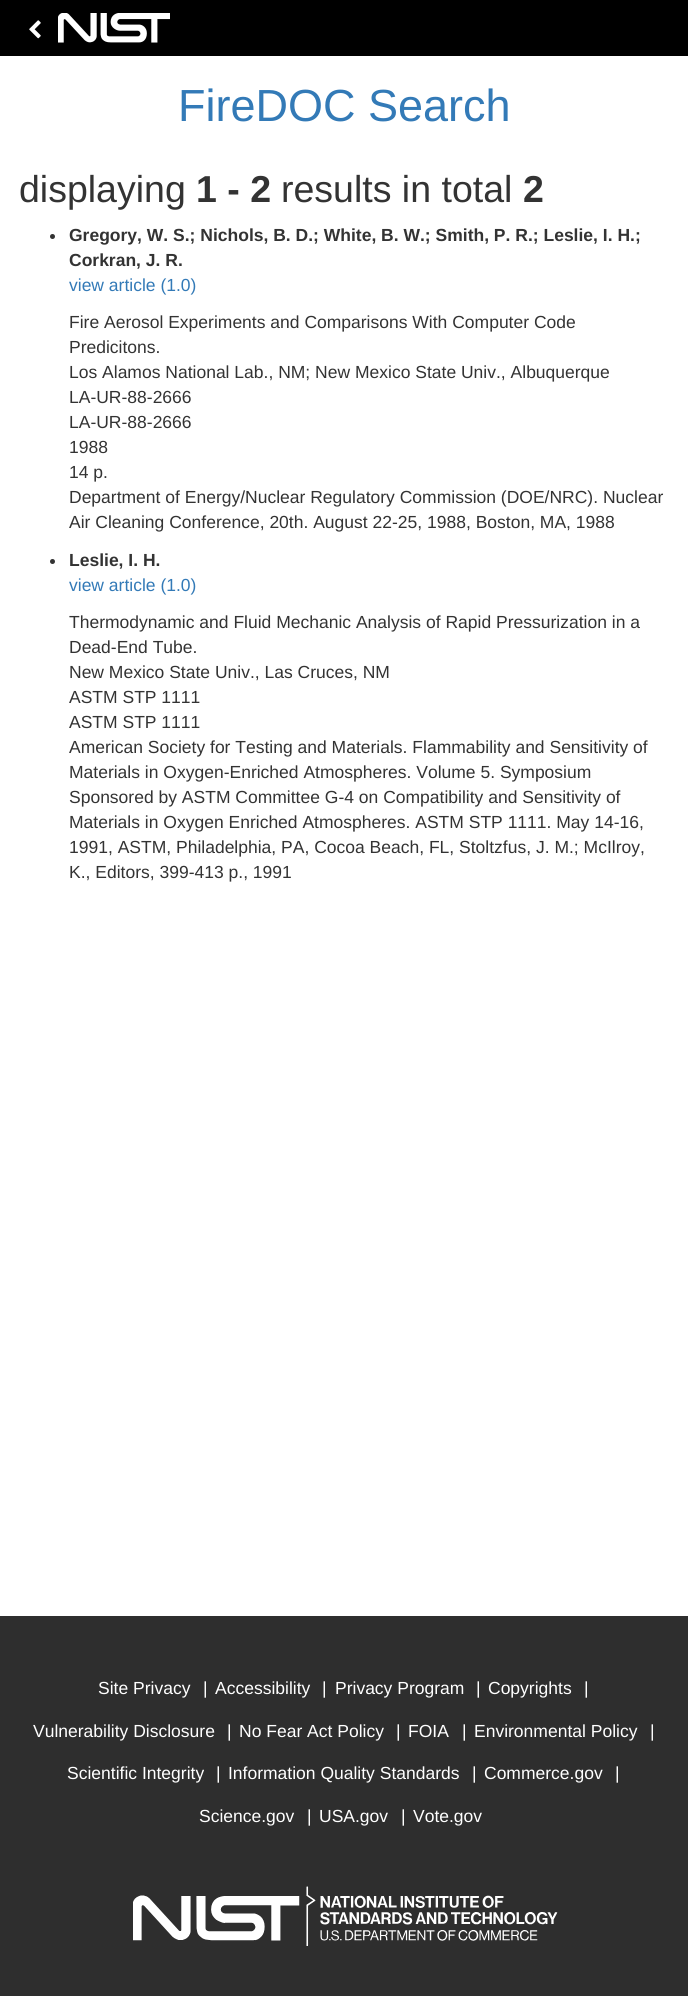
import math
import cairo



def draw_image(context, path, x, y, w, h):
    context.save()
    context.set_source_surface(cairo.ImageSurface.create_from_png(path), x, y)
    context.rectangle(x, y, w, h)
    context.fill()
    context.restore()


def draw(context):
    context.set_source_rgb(1, 1, 1)
    context.paint()
    context.set_source_rgb(0, 0, 0)
    context.rectangle(0, 0, 688, 56)
    context.fill()
    draw_image(context, "images/1.png", 29, 20, 12, 19)
    draw_image(context, "images/2.png", 58, 13, 112, 30)
    context.set_source_rgb(51 / 255, 51 / 255, 51 / 255)
    context.arc(52.5, 236.5, 2.5, 0, 2 * math.pi)
    context.fill()
    context.arc(52.5, 561.5, 2.5, 0, 2 * math.pi)
    context.fill()
    context.set_source_rgb(46 / 255, 46 / 255, 46 / 255)
    context.rectangle(0, 1616, 688, 380)
    context.fill()
    draw_image(context, "images/3.png", 133, 1886, 425, 60)
    context.select_font_face("Liberation Sans")
    context.set_font_size(45)
    context.set_source_rgb(51 / 255, 122 / 255, 183 / 255)
    context.move_to(178, 121)
    context.show_text("FireDOC Search")
    context.set_font_size(37.5)
    context.set_source_rgb(51 / 255, 51 / 255, 51 / 255)
    context.move_to(19, 202)
    context.show_text("displaying")
    context.select_font_face("Liberation Sans", cairo.FontSlant.NORMAL, cairo.FontWeight.BOLD)
    context.move_to(196, 202)
    context.show_text("1 - 2")
    context.select_font_face("Liberation Sans")
    context.move_to(281, 202)
    context.show_text("results in total")
    context.select_font_face("Liberation Sans", cairo.FontSlant.NORMAL, cairo.FontWeight.BOLD)
    context.move_to(523, 202)
    context.show_text("2")
    context.set_font_size(17.5)
    context.move_to(69, 241)
    context.show_text("Gregory, W. S.; Nichols, B. D.; White, B. W.; Smith, P. R.; Leslie, I. H.;")
    context.move_to(69, 266)
    context.show_text("Corkran, J. R.")
    context.select_font_face("Liberation Sans")
    context.set_source_rgb(51 / 255, 122 / 255, 183 / 255)
    context.move_to(69, 291)
    context.show_text("view article (1.0)")
    context.set_source_rgb(51 / 255, 51 / 255, 51 / 255)
    context.move_to(69, 328)
    context.show_text("Fire Aerosol Experiments and Comparisons With Computer Code")
    context.move_to(69, 353)
    context.show_text("Predicitons.")
    context.move_to(69, 378)
    context.show_text("Los Alamos National Lab., NM; New Mexico State Univ., Albuquerque")
    context.move_to(69, 403)
    context.show_text("LA-UR-88-2666")
    context.move_to(69, 428)
    context.show_text("LA-UR-88-2666")
    context.move_to(69, 453)
    context.show_text("1988")
    context.move_to(69, 478)
    context.show_text("14 p.")
    context.move_to(69, 503)
    context.show_text("Department of Energy/Nuclear Regulatory Commission (DOE/NRC). Nuclear")
    context.move_to(69, 528)
    context.show_text("Air Cleaning Conference, 20th. August 22-25, 1988, Boston, MA, 1988")
    context.select_font_face("Liberation Sans", cairo.FontSlant.NORMAL, cairo.FontWeight.BOLD)
    context.move_to(69, 566)
    context.show_text("Leslie, I. H.")
    context.select_font_face("Liberation Sans")
    context.set_source_rgb(51 / 255, 122 / 255, 183 / 255)
    context.move_to(69, 591)
    context.show_text("view article (1.0)")
    context.set_source_rgb(51 / 255, 51 / 255, 51 / 255)
    context.move_to(69, 628)
    context.show_text("Thermodynamic and Fluid Mechanic Analysis of Rapid Pressurization in a")
    context.move_to(69, 653)
    context.show_text("Dead-End Tube.")
    context.move_to(69, 678)
    context.show_text("New Mexico State Univ., Las Cruces, NM")
    context.move_to(69, 703)
    context.show_text("ASTM STP 1111")
    context.move_to(69, 728)
    context.show_text("ASTM STP 1111")
    context.move_to(69, 753)
    context.show_text("American Society for Testing and Materials. Flammability and Sensitivity of")
    context.move_to(69, 778)
    context.show_text("Materials in Oxygen-Enriched Atmospheres. Volume 5. Symposium")
    context.move_to(69, 803)
    context.show_text("Sponsored by ASTM Committee G-4 on Compatibility and Sensitivity of")
    context.move_to(69, 828)
    context.show_text("Materials in Oxygen Enriched Atmospheres. ASTM STP 1111. May 14-16,")
    context.move_to(69, 853)
    context.show_text("1991, ASTM, Philadelphia, PA, Cocoa Beach, FL, Stoltzfus, J. M.; McIlroy,")
    context.move_to(69, 878)
    context.show_text("K., Editors, 399-413 p., 1991")
    context.set_source_rgb(1, 1, 1)
    context.move_to(98, 1694)
    context.show_text("Site Privacy")
    context.move_to(203, 1694)
    context.show_text("|")
    context.move_to(215, 1694)
    context.show_text("Accessibility")
    context.move_to(322, 1694)
    context.show_text("|")
    context.move_to(335, 1694)
    context.show_text("Privacy Program")
    context.move_to(476, 1694)
    context.show_text("|")
    context.move_to(488, 1694)
    context.show_text("Copyrights")
    context.move_to(584, 1694)
    context.show_text("|")
    context.move_to(33, 1737)
    context.show_text("Vulnerability Disclosure")
    context.move_to(227, 1737)
    context.show_text("|")
    context.move_to(239, 1737)
    context.show_text("No Fear Act Policy")
    context.move_to(396, 1737)
    context.show_text("|")
    context.move_to(408, 1737)
    context.show_text("FOIA")
    context.move_to(462, 1737)
    context.show_text("|")
    context.move_to(474, 1737)
    context.show_text("Environmental Policy")
    context.move_to(650, 1737)
    context.show_text("|")
    context.move_to(67, 1779)
    context.show_text("Scientific Integrity")
    context.move_to(216, 1779)
    context.show_text("|")
    context.move_to(228, 1779)
    context.show_text("Information Quality Standards")
    context.move_to(472, 1779)
    context.show_text("|")
    context.move_to(484, 1779)
    context.show_text("Commerce.gov")
    context.move_to(615, 1779)
    context.show_text("|")
    context.move_to(199, 1822)
    context.show_text("Science.gov")
    context.move_to(307, 1822)
    context.show_text("|")
    context.move_to(319, 1822)
    context.show_text("USA.gov")
    context.move_to(401, 1822)
    context.show_text("|")
    context.move_to(413, 1822)
    context.show_text("Vote.gov")


surface = cairo.ImageSurface(cairo.Format.RGB24, 688, 1996)
context = cairo.Context(surface)
options = cairo.FontOptions()
options.set_hint_metrics(cairo.HintMetrics.OFF)
options.set_hint_style(cairo.HintStyle.NONE)
context.set_font_options(options)
context.set_miter_limit(4)
draw(context)
surface.write_to_png("out.png")
